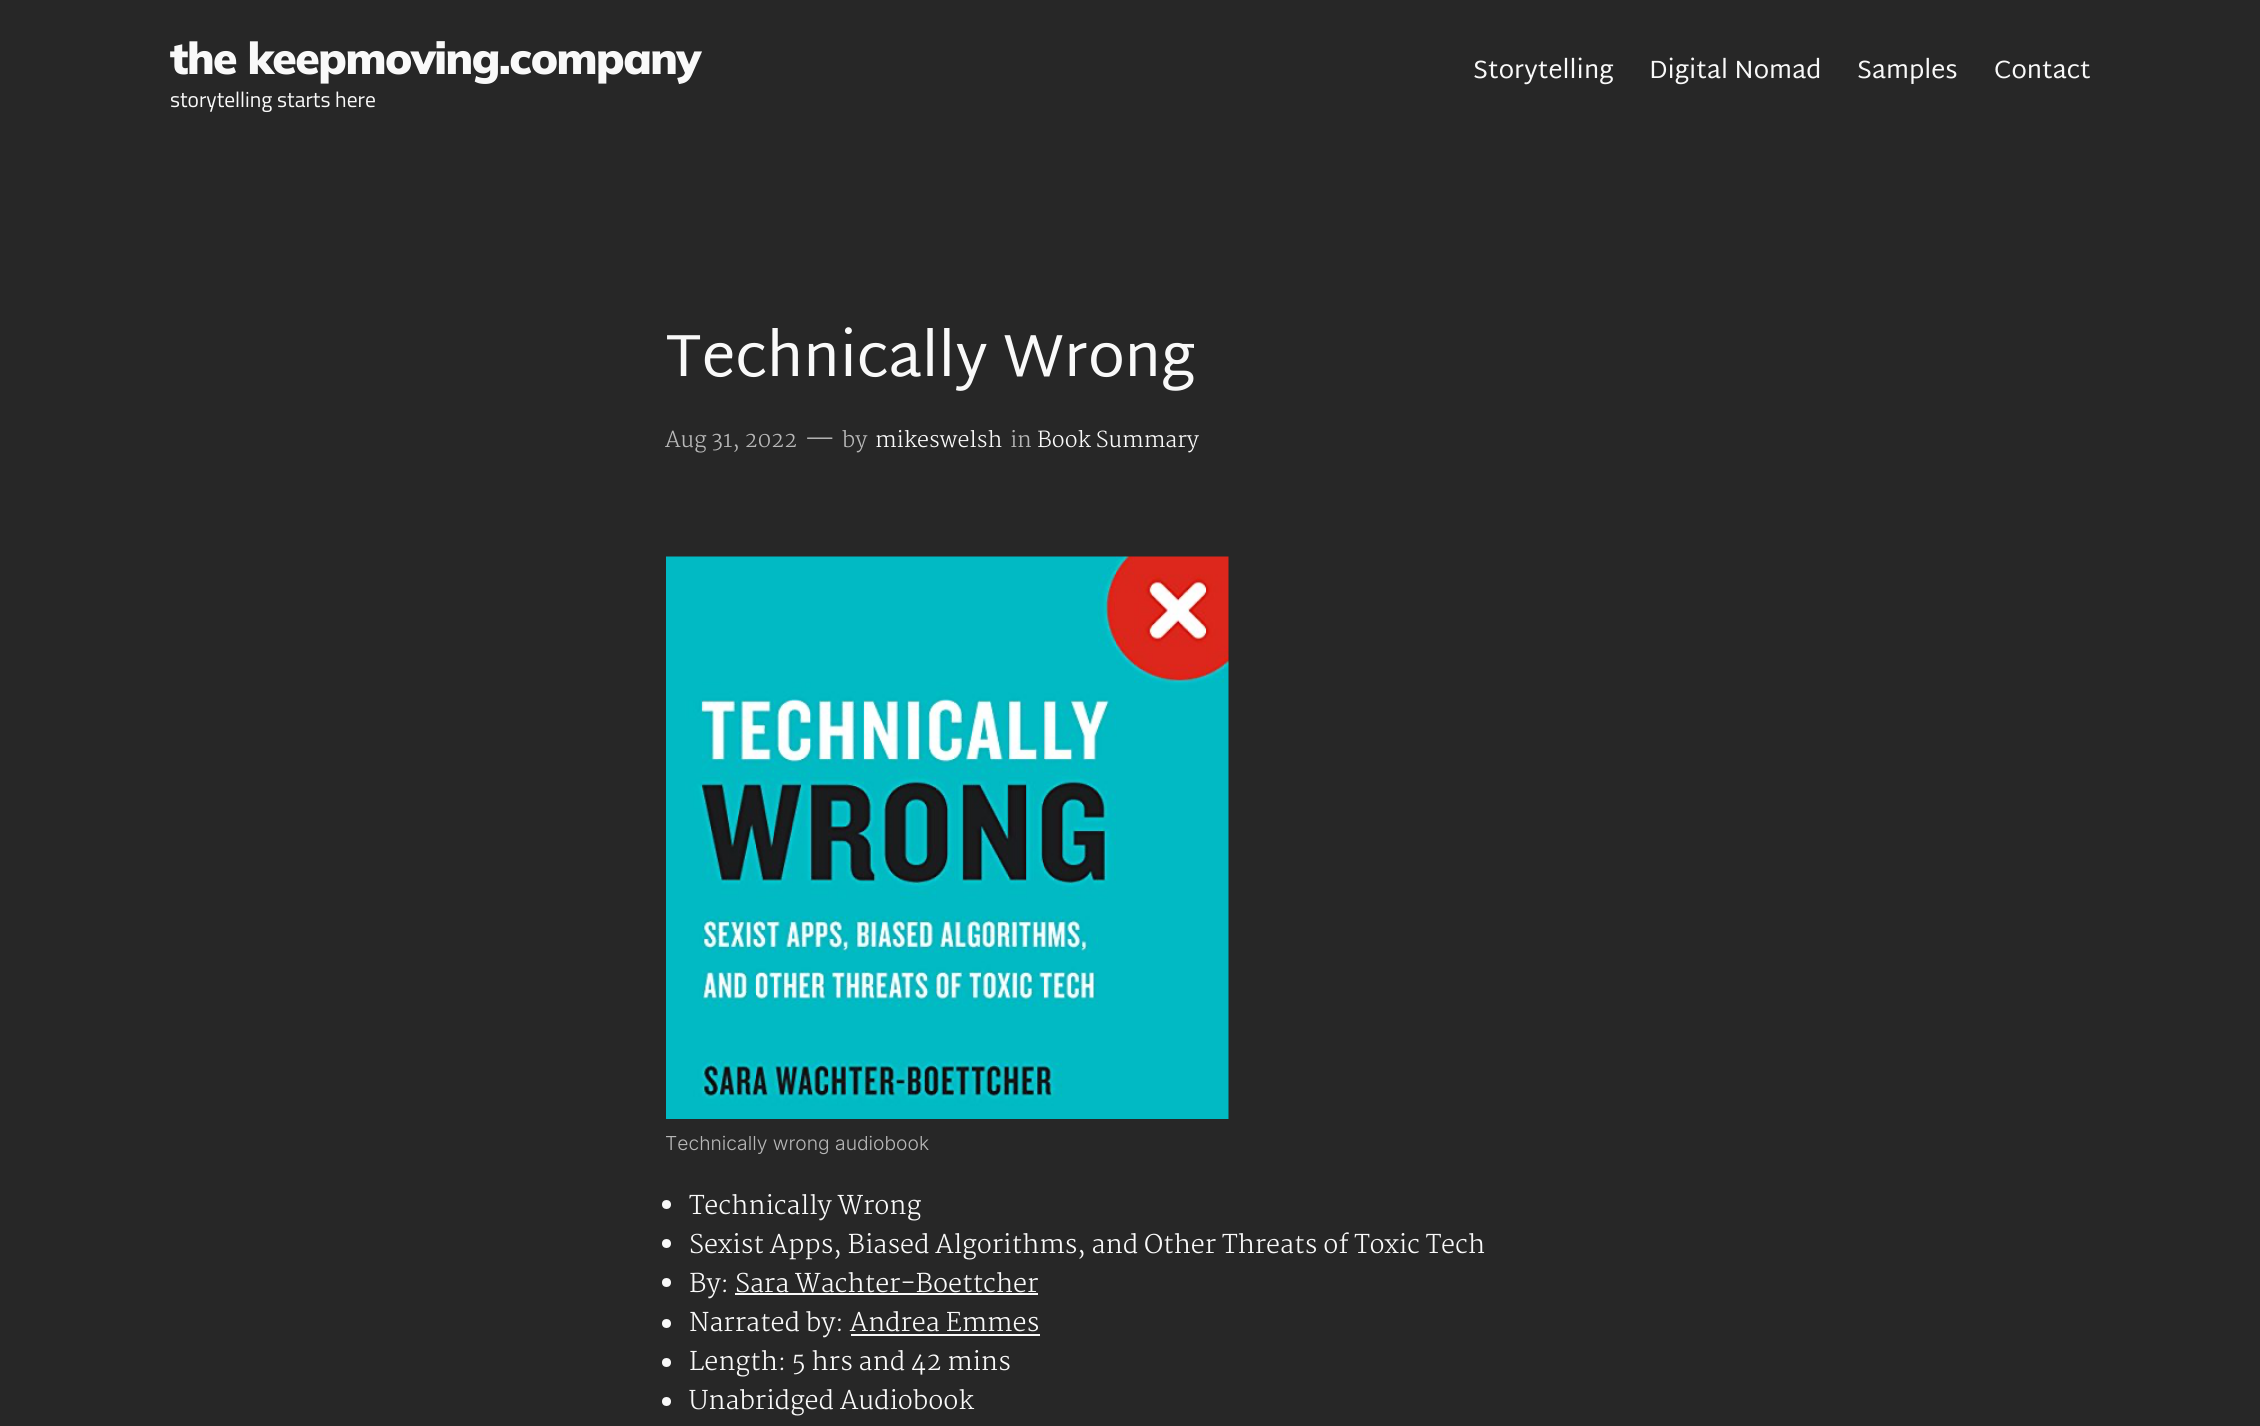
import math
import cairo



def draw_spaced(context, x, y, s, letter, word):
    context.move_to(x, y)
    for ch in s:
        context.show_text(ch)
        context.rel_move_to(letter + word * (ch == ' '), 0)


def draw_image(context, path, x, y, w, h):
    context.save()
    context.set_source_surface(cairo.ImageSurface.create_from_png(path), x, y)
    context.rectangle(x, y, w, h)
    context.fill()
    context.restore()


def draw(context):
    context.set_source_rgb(39 / 255, 39 / 255, 39 / 255)
    context.paint()
    draw_image(context, "images/1.png", 666, 556, 563, 563)
    context.set_source_rgb(249 / 255, 249 / 255, 249 / 255)
    context.arc(666.5, 1204.5, 4.5, 0, 2 * math.pi)
    context.fill()
    context.arc(666.5, 1243.5, 4.5, 0, 2 * math.pi)
    context.fill()
    context.arc(666.5, 1282.5, 4.5, 0, 2 * math.pi)
    context.fill()
    context.rectangle(735, 1293, 303, 2)
    context.fill()
    context.arc(666.5, 1323.5, 4.5, 0, 2 * math.pi)
    context.fill()
    context.rectangle(851, 1334, 189, 2)
    context.fill()
    context.arc(666.5, 1362.5, 4.5, 0, 2 * math.pi)
    context.fill()
    context.arc(666.5, 1401.5, 4.5, 0, 2 * math.pi)
    context.fill()
    context.select_font_face("Mulish Black")
    context.set_font_size(44.4)
    draw_spaced(context, 170, 74, "the keepmoving.company", -1.5, 0)
    context.select_font_face("Titillium Web")
    context.set_font_size(21.5)
    context.move_to(170, 107)
    context.show_text("storytelling starts here")
    context.select_font_face("Martel Sans")
    context.set_font_size(25.2)
    context.move_to(1473, 78)
    context.show_text("Storytelling")
    context.move_to(1649, 78)
    context.show_text("Digital Nomad")
    context.move_to(1857, 78)
    context.show_text("Samples")
    context.move_to(1994, 78)
    context.show_text("Contact")
    context.set_font_size(60)
    context.move_to(665, 376)
    context.show_text("Technically Wrong")
    context.select_font_face("Martel Light")
    context.set_font_size(21.5)
    context.set_source_rgb(183 / 255, 183 / 255, 183 / 255)
    context.move_to(665, 447)
    context.show_text("Aug 31, 2022")
    context.set_font_size(25.2)
    context.move_to(805, 448)
    context.show_text("—")
    context.set_font_size(21.5)
    context.move_to(842, 447)
    context.show_text("by")
    context.set_source_rgb(249 / 255, 249 / 255, 249 / 255)
    context.move_to(875, 447)
    context.show_text("mikeswelsh")
    context.set_source_rgb(183 / 255, 183 / 255, 183 / 255)
    context.move_to(1010, 447)
    context.show_text("in")
    context.set_source_rgb(249 / 255, 249 / 255, 249 / 255)
    context.move_to(1037, 447)
    context.show_text("Book Summary")
    context.select_font_face("Inter Light")
    context.set_font_size(19.25)
    context.set_source_rgb(183 / 255, 183 / 255, 183 / 255)
    context.move_to(665, 1150)
    context.show_text("Technically wrong audiobook")
    context.select_font_face("Martel Light")
    context.set_font_size(25.2)
    context.set_source_rgb(249 / 255, 249 / 255, 249 / 255)
    context.move_to(689, 1214)
    context.show_text("Technically Wrong")
    context.move_to(689, 1253)
    context.show_text("Sexist Apps, Biased Algorithms, and Other Threats of Toxic Tech")
    context.move_to(689, 1292)
    context.show_text("By: Sara Wachter-Boettcher")
    context.move_to(689, 1331)
    context.show_text("Narrated by: Andrea Emmes")
    context.move_to(689, 1370)
    context.show_text("Length: 5 hrs and 42 mins")
    context.move_to(689, 1409)
    context.show_text("Unabridged Audiobook")


surface = cairo.ImageSurface(cairo.Format.RGB24, 2260, 1426)
context = cairo.Context(surface)
options = cairo.FontOptions()
options.set_hint_metrics(cairo.HintMetrics.OFF)
options.set_hint_style(cairo.HintStyle.NONE)
context.set_font_options(options)
context.set_miter_limit(4)
draw(context)
surface.write_to_png("out.png")
